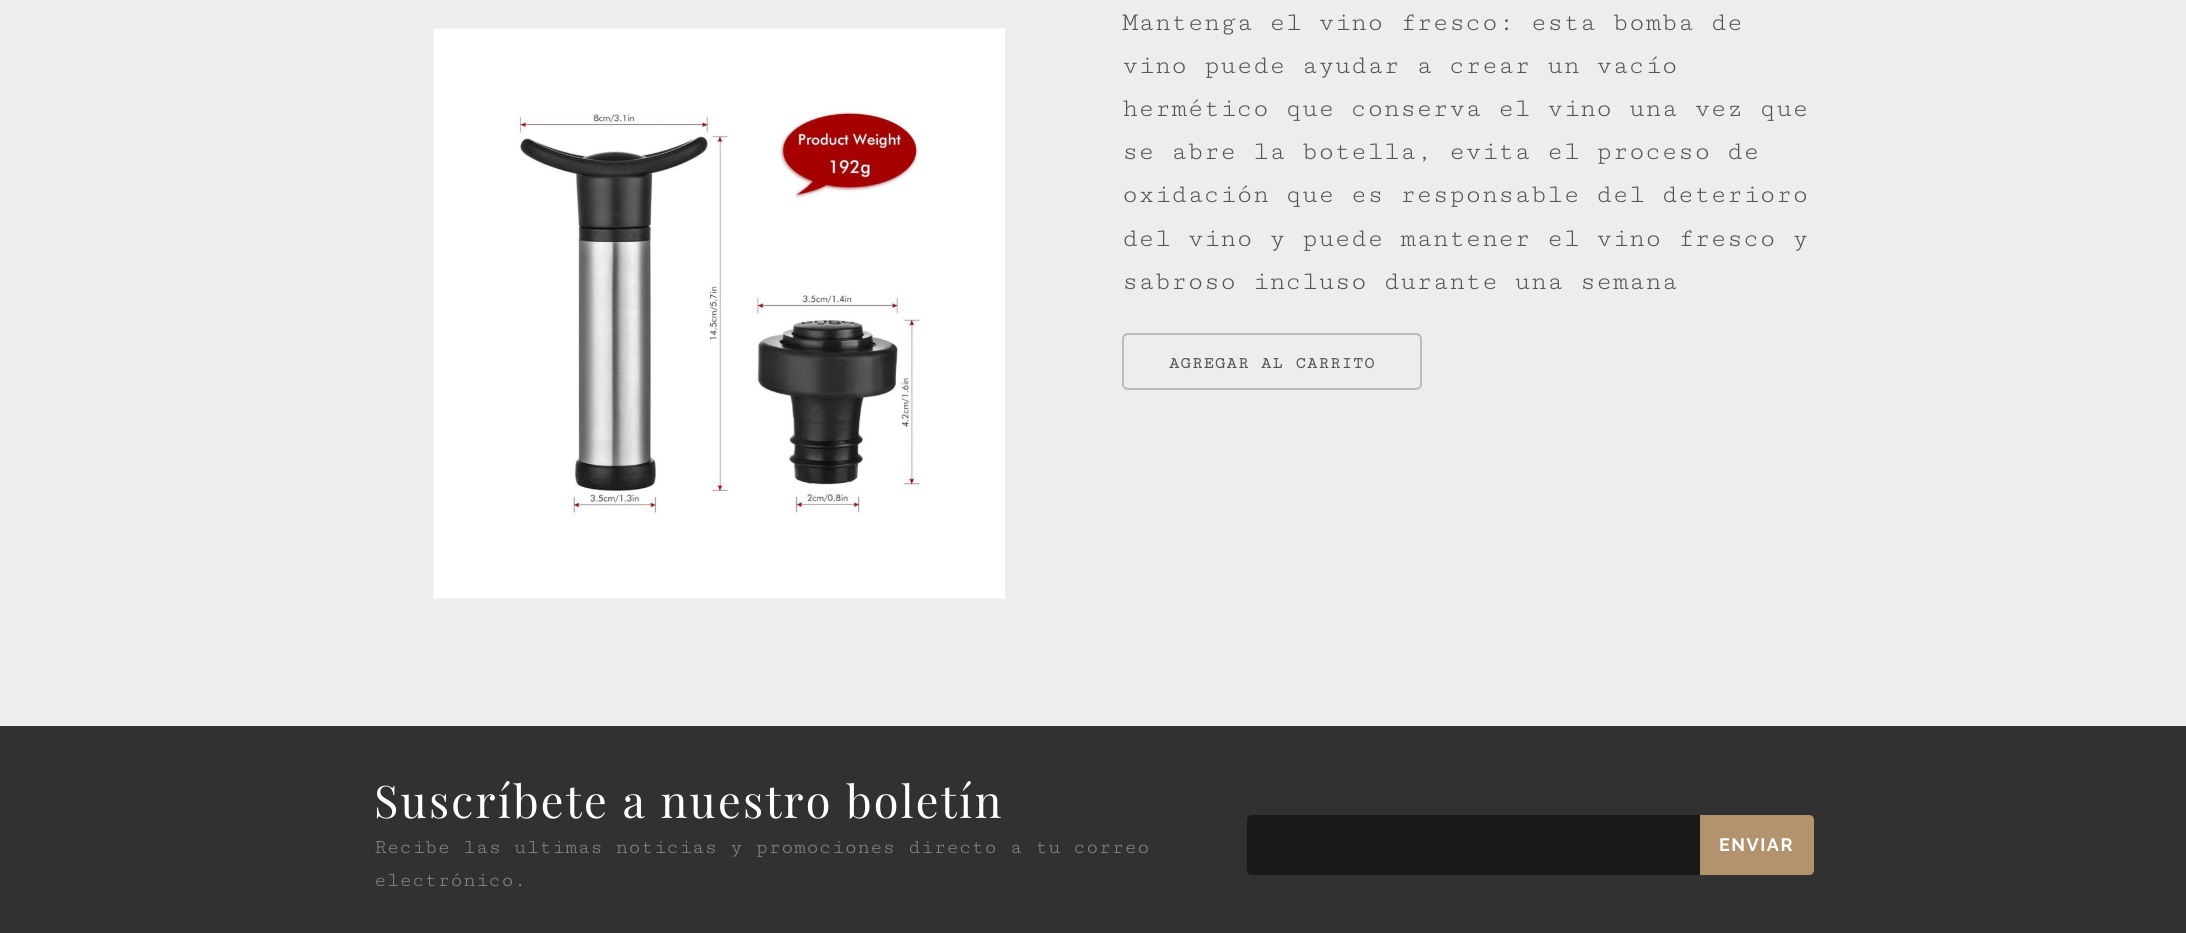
import math
import cairo



def draw_spaced(context, x, y, s, letter, word):
    context.move_to(x, y)
    for ch in s:
        context.show_text(ch)
        context.rel_move_to(letter + word * (ch == ' '), 0)


def rounded_rect(context, x, y, w, h, r):
    context.new_sub_path()
    for i, (u, v) in enumerate([(x + w - r, y + h - r), (x + r, y + h - r), (x + r, y + r), (x + w - r, y + r)]):
        context.arc(u, v, r, i * math.pi / 2, (i + 1) * math.pi / 2)
    context.close_path()


def draw_image(context, path, x, y, w, h):
    context.save()
    context.set_source_surface(cairo.ImageSurface.create_from_png(path), x, y)
    context.rectangle(x, y, w, h)
    context.fill()
    context.restore()


def draw(context):
    context.set_source_rgb(237 / 255, 237 / 255, 237 / 255)
    context.paint()
    draw_image(context, "images/1.png", 433, 28, 572, 571)
    rounded_rect(context, 1123, 334, 298, 55, 5)
    context.set_source_rgb(187 / 255, 187 / 255, 187 / 255)
    context.stroke()
    context.set_source_rgb(49 / 255, 49 / 255, 49 / 255)
    context.rectangle(0, 726, 2186, 207)
    context.fill()
    context.set_source_rgb(25 / 255, 25 / 255, 25 / 255)
    context.new_path()
    context.move_to(1252, 815)
    context.line_to(1700, 815)
    context.line_to(1700, 875)
    context.line_to(1252, 875)
    context.curve_to(1249, 875, 1247, 873, 1247, 870)
    context.line_to(1247, 820)
    context.curve_to(1247, 817, 1249, 815, 1252, 815)
    context.close_path()
    context.fill()
    context.set_source_rgb(178 / 255, 147 / 255, 109 / 255)
    context.new_path()
    context.move_to(1700, 815)
    context.line_to(1809, 815)
    context.curve_to(1812, 815, 1814, 817, 1814, 820)
    context.line_to(1814, 870)
    context.curve_to(1814, 873, 1812, 875, 1809, 875)
    context.line_to(1700, 875)
    context.close_path()
    context.fill()
    context.select_font_face("Cutive Mono")
    context.set_font_size(27)
    context.set_source_rgb(85 / 255, 85 / 255, 85 / 255)
    context.move_to(1122, 30)
    context.show_text("Mantenga el vino fresco: esta bomba de")
    context.move_to(1122, 73)
    context.show_text("vino puede ayudar a crear un vacío")
    context.move_to(1122, 116)
    context.show_text("hermético que conserva el vino una vez que")
    context.move_to(1122, 159)
    context.show_text("se abre la botella, evita el proceso de")
    context.move_to(1122, 202)
    context.show_text("oxidación que es responsable del deterioro")
    context.move_to(1122, 246)
    context.show_text("del vino y puede mantener el vino fresco y")
    context.move_to(1122, 289)
    context.show_text("sabroso incluso durante una semana")
    context.select_font_face("Cutive Mono", cairo.FontSlant.NORMAL, cairo.FontWeight.BOLD)
    context.set_font_size(16.5)
    draw_spaced(context, 1169, 368, "AGREGAR AL CARRITO", 1.5, 0)
    context.select_font_face("Playfair Display")
    context.set_font_size(45)
    context.set_source_rgb(1, 1, 1)
    draw_spaced(context, 374, 818, "Suscríbete a nuestro boletín", 2.25, 0)
    context.select_font_face("Cutive Mono")
    context.set_font_size(21)
    context.set_source_rgb(136 / 255, 136 / 255, 136 / 255)
    context.move_to(374, 853)
    context.show_text("Recibe las ultimas noticias y promociones directo a tu correo")
    context.move_to(374, 886)
    context.show_text("electrónico.")
    context.select_font_face("Raleway", cairo.FontSlant.NORMAL, cairo.FontWeight.BOLD)
    context.set_font_size(18)
    context.set_source_rgb(1, 1, 1)
    draw_spaced(context, 1719, 851, "ENVIAR", 1.5, 0)


surface = cairo.ImageSurface(cairo.Format.RGB24, 2186, 933)
context = cairo.Context(surface)
options = cairo.FontOptions()
options.set_hint_metrics(cairo.HintMetrics.OFF)
options.set_hint_style(cairo.HintStyle.NONE)
context.set_font_options(options)
context.set_miter_limit(4)
draw(context)
surface.write_to_png("out.png")
